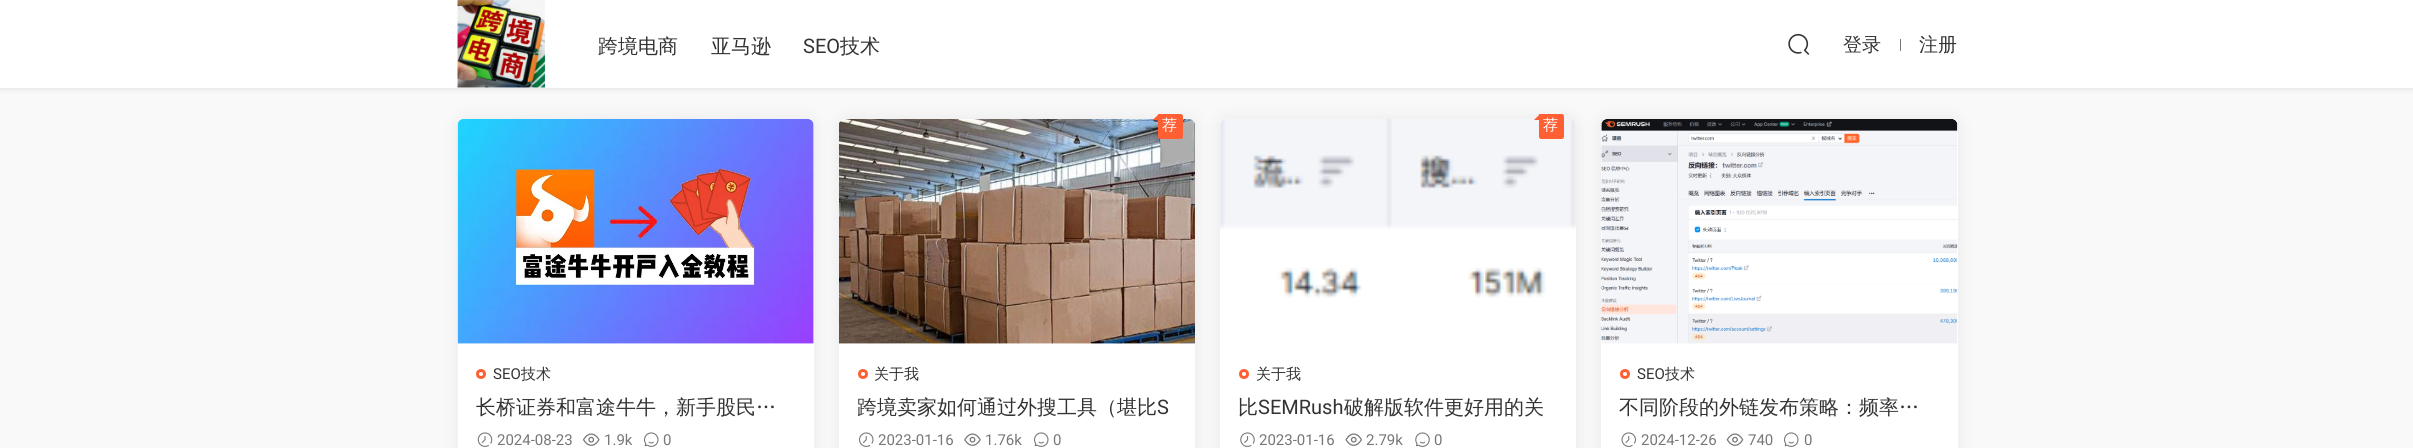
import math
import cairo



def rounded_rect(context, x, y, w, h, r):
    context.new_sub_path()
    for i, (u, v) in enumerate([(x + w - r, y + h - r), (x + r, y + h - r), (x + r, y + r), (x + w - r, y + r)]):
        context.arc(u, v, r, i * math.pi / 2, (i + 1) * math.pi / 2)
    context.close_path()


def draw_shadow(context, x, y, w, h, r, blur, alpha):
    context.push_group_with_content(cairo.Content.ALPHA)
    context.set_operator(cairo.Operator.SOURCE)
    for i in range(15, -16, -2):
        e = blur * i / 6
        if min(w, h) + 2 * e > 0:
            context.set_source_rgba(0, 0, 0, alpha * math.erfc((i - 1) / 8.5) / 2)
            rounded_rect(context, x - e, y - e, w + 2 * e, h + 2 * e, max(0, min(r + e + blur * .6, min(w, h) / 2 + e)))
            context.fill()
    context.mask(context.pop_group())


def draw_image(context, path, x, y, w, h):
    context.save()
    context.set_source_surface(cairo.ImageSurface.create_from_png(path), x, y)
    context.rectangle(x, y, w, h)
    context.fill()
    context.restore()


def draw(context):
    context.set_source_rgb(249 / 255, 249 / 255, 249 / 255)
    context.paint()
    context.set_source_rgb(0, 0, 0)
    draw_shadow(context, 0, 1, 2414, 88, 0, 3, 0.1)
    context.set_source_rgb(1, 1, 1)
    context.rectangle(0, 0, 2413, 88)
    context.fill()
    draw_image(context, "images/1.png", 457, 0, 88, 88)
    draw_image(context, "images/2.png", 1788, 33, 22, 22)
    context.set_source_rgb(119 / 255, 119 / 255, 119 / 255)
    context.rectangle(1900, 39, 1, 12)
    context.fill()
    context.set_source_rgb(0, 0, 0)
    draw_shadow(context, 458, 119, 356, 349, 6, 9.5, 0.07)
    context.set_source_rgb(1, 1, 1)
    rounded_rect(context, 458, 119, 356, 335, 6)
    context.fill()
    context.new_path()
    context.move_to(464, 119)
    context.line_to(808, 119)
    context.curve_to(811.5, 119, 814, 121.5, 814, 125)
    context.line_to(814, 344)
    context.line_to(458, 344)
    context.line_to(458, 125)
    context.curve_to(458, 121.5, 460.5, 119, 464, 119)
    context.close_path()
    context.fill()
    draw_image(context, "images/3.png", 457, 119, 357, 225)
    context.arc(481, 374, 3.5, 0, 2 * math.pi)
    context.set_source_rgb(1, 95 / 255, 51 / 255)
    context.set_line_width(3)
    context.stroke()
    draw_image(context, "images/4.png", 477, 432, 16, 15)
    draw_image(context, "images/5.png", 583, 433, 17, 13)
    draw_image(context, "images/6.png", 644, 432, 15, 15)
    context.set_source_rgb(0, 0, 0)
    draw_shadow(context, 839, 119, 356, 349, 6, 9.5, 0.07)
    context.set_source_rgb(1, 1, 1)
    rounded_rect(context, 839, 119, 356, 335, 6)
    context.fill()
    context.new_path()
    context.move_to(845, 119)
    context.line_to(1189, 119)
    context.curve_to(1192.5, 119, 1195, 121.5, 1195, 125)
    context.line_to(1195, 344)
    context.line_to(839, 344)
    context.line_to(839, 125)
    context.curve_to(839, 121.5, 841.5, 119, 845, 119)
    context.close_path()
    context.fill()
    draw_image(context, "images/7.png", 839, 119, 356, 225)
    context.set_source_rgb(1, 95 / 255, 51 / 255)
    context.new_path()
    context.move_to(1158, 114)
    context.line_to(1180.5, 114)
    context.curve_to(1182, 114, 1183, 115, 1183, 116.5)
    context.line_to(1183, 136.5)
    context.curve_to(1183, 138, 1182, 139, 1180.5, 139)
    context.line_to(1160.5, 139)
    context.curve_to(1159, 139, 1158, 138, 1158, 136.5)
    context.close_path()
    context.fill()
    context.new_path()
    context.move_to(1159, 120)
    context.line_to(1152.5, 120)
    context.line_to(1159, 114)
    context.close_path()
    context.fill()
    context.arc(863, 374, 3.5, 0, 2 * math.pi)
    context.stroke()
    draw_image(context, "images/8.png", 859, 432, 15, 15)
    draw_image(context, "images/9.png", 964, 433, 17, 13)
    draw_image(context, "images/6.png", 1034, 432, 15, 15)
    context.set_source_rgb(0, 0, 0)
    draw_shadow(context, 1220, 119, 356, 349, 6, 9.5, 0.07)
    context.set_source_rgb(1, 1, 1)
    rounded_rect(context, 1220, 119, 356, 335, 6)
    context.fill()
    context.new_path()
    context.move_to(1226, 119)
    context.line_to(1570, 119)
    context.curve_to(1573.5, 119, 1576, 121.5, 1576, 125)
    context.line_to(1576, 344)
    context.line_to(1220, 344)
    context.line_to(1220, 125)
    context.curve_to(1220, 121.5, 1222.5, 119, 1226, 119)
    context.close_path()
    context.fill()
    draw_image(context, "images/10.png", 1220, 119, 356, 179)
    context.set_source_rgb(1, 95 / 255, 51 / 255)
    context.new_path()
    context.move_to(1539, 114)
    context.line_to(1561.5, 114)
    context.curve_to(1563, 114, 1564, 115, 1564, 116.5)
    context.line_to(1564, 136.5)
    context.curve_to(1564, 138, 1563, 139, 1561.5, 139)
    context.line_to(1541.5, 139)
    context.curve_to(1540, 139, 1539, 138, 1539, 136.5)
    context.close_path()
    context.fill()
    context.new_path()
    context.move_to(1540, 120)
    context.line_to(1534, 120)
    context.line_to(1540, 114)
    context.close_path()
    context.fill()
    context.arc(1244, 374, 3.5, 0, 2 * math.pi)
    context.stroke()
    draw_image(context, "images/11.png", 1240, 432, 15, 15)
    draw_image(context, "images/12.png", 1345, 433, 17, 13)
    draw_image(context, "images/13.png", 1415, 432, 15, 15)
    context.set_source_rgb(0, 0, 0)
    draw_shadow(context, 1601, 119, 357, 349, 6, 9.5, 0.07)
    context.set_source_rgb(1, 1, 1)
    rounded_rect(context, 1601, 119, 357, 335, 6)
    context.fill()
    context.new_path()
    context.move_to(1607, 119)
    context.line_to(1952, 119)
    context.curve_to(1955.5, 119, 1958, 121.5, 1958, 125)
    context.line_to(1958, 344)
    context.line_to(1601, 344)
    context.line_to(1601, 125)
    context.curve_to(1601, 121.5, 1603.5, 119, 1607, 119)
    context.close_path()
    context.fill()
    draw_image(context, "images/14.png", 1601, 119, 357, 225)
    context.arc(1625, 374, 3.5, 0, 2 * math.pi)
    context.set_source_rgb(1, 95 / 255, 51 / 255)
    context.stroke()
    draw_image(context, "images/15.png", 1621, 432, 15, 15)
    draw_image(context, "images/16.png", 1726, 433, 18, 13)
    draw_image(context, "images/6.png", 1784, 432, 15, 15)
    context.select_font_face("WenQuanYi Zen Hei Medium")
    context.set_font_size(20)
    context.set_source_rgb(51 / 255, 51 / 255, 51 / 255)
    context.move_to(598, 53)
    context.show_text("跨境电商")
    context.move_to(711, 53)
    context.show_text("亚马逊")
    context.select_font_face("Roboto")
    context.move_to(803, 53)
    context.show_text("SEO")
    context.select_font_face("WenQuanYi Zen Hei Medium")
    context.move_to(840, 53)
    context.show_text("技术")
    context.set_font_size(19)
    context.move_to(1843, 51)
    context.show_text("登录")
    context.move_to(1919, 51)
    context.show_text("注册")
    context.select_font_face("Roboto")
    context.set_font_size(15)
    context.move_to(493, 379)
    context.show_text("SEO")
    context.select_font_face("WenQuanYi Zen Hei Medium")
    context.move_to(521, 379)
    context.show_text("技术")
    context.set_font_size(20)
    context.move_to(476, 414)
    context.show_text("长桥证券和富途牛牛，新手股民…")
    context.select_font_face("Roboto")
    context.set_font_size(15)
    context.set_source_rgb(119 / 255, 119 / 255, 119 / 255)
    context.move_to(497, 445)
    context.show_text("2024-08-23")
    context.move_to(604, 445)
    context.show_text("1.9k")
    context.move_to(663, 445)
    context.show_text("0")
    context.select_font_face("WenQuanYi Zen Hei Medium")
    context.set_source_rgb(1, 1, 1)
    context.move_to(1162, 130)
    context.show_text("荐")
    context.set_source_rgb(51 / 255, 51 / 255, 51 / 255)
    context.move_to(874, 379)
    context.show_text("关于我")
    context.save()
    context.rectangle(858, 395, 318, 25)
    context.clip()
    context.set_font_size(20)
    context.move_to(857, 414)
    context.show_text("跨境卖家如何通过外搜工具（堪比")
    context.restore()
    context.select_font_face("Roboto")
    context.set_font_size(20)
    context.move_to(1157, 414)
    context.show_text("S")
    context.set_font_size(15)
    context.set_source_rgb(119 / 255, 119 / 255, 119 / 255)
    context.move_to(878, 445)
    context.show_text("2023-01-16")
    context.move_to(985, 445)
    context.show_text("1.76k")
    context.move_to(1053, 445)
    context.show_text("0")
    context.select_font_face("WenQuanYi Zen Hei Medium")
    context.set_source_rgb(1, 1, 1)
    context.move_to(1543, 130)
    context.show_text("荐")
    context.set_source_rgb(51 / 255, 51 / 255, 51 / 255)
    context.move_to(1256, 379)
    context.show_text("关于我")
    context.set_font_size(20)
    context.move_to(1238, 414)
    context.show_text("比")
    context.select_font_face("Roboto")
    context.move_to(1258, 414)
    context.show_text("SEMRush")
    context.select_font_face("WenQuanYi Zen Hei Medium")
    context.move_to(1344, 414)
    context.show_text("破解版软件更好用的关")
    context.select_font_face("Roboto")
    context.set_font_size(15)
    context.set_source_rgb(119 / 255, 119 / 255, 119 / 255)
    context.move_to(1259, 445)
    context.show_text("2023-01-16")
    context.move_to(1366, 445)
    context.show_text("2.79k")
    context.move_to(1434, 445)
    context.show_text("0")
    context.set_source_rgb(51 / 255, 51 / 255, 51 / 255)
    context.move_to(1637, 379)
    context.show_text("SEO")
    context.select_font_face("WenQuanYi Zen Hei Medium")
    context.move_to(1665, 379)
    context.show_text("技术")
    context.set_font_size(20)
    context.move_to(1619, 414)
    context.show_text("不同阶段的外链发布策略：频率…")
    context.select_font_face("Roboto")
    context.set_font_size(15)
    context.set_source_rgb(119 / 255, 119 / 255, 119 / 255)
    context.move_to(1641, 445)
    context.show_text("2024-12-26")
    context.move_to(1748, 445)
    context.show_text("740")
    context.move_to(1804, 445)
    context.show_text("0")


surface = cairo.ImageSurface(cairo.Format.RGB24, 2413, 448)
context = cairo.Context(surface)
options = cairo.FontOptions()
options.set_hint_metrics(cairo.HintMetrics.OFF)
options.set_hint_style(cairo.HintStyle.NONE)
context.set_font_options(options)
context.set_miter_limit(4)
draw(context)
surface.write_to_png("out.png")
